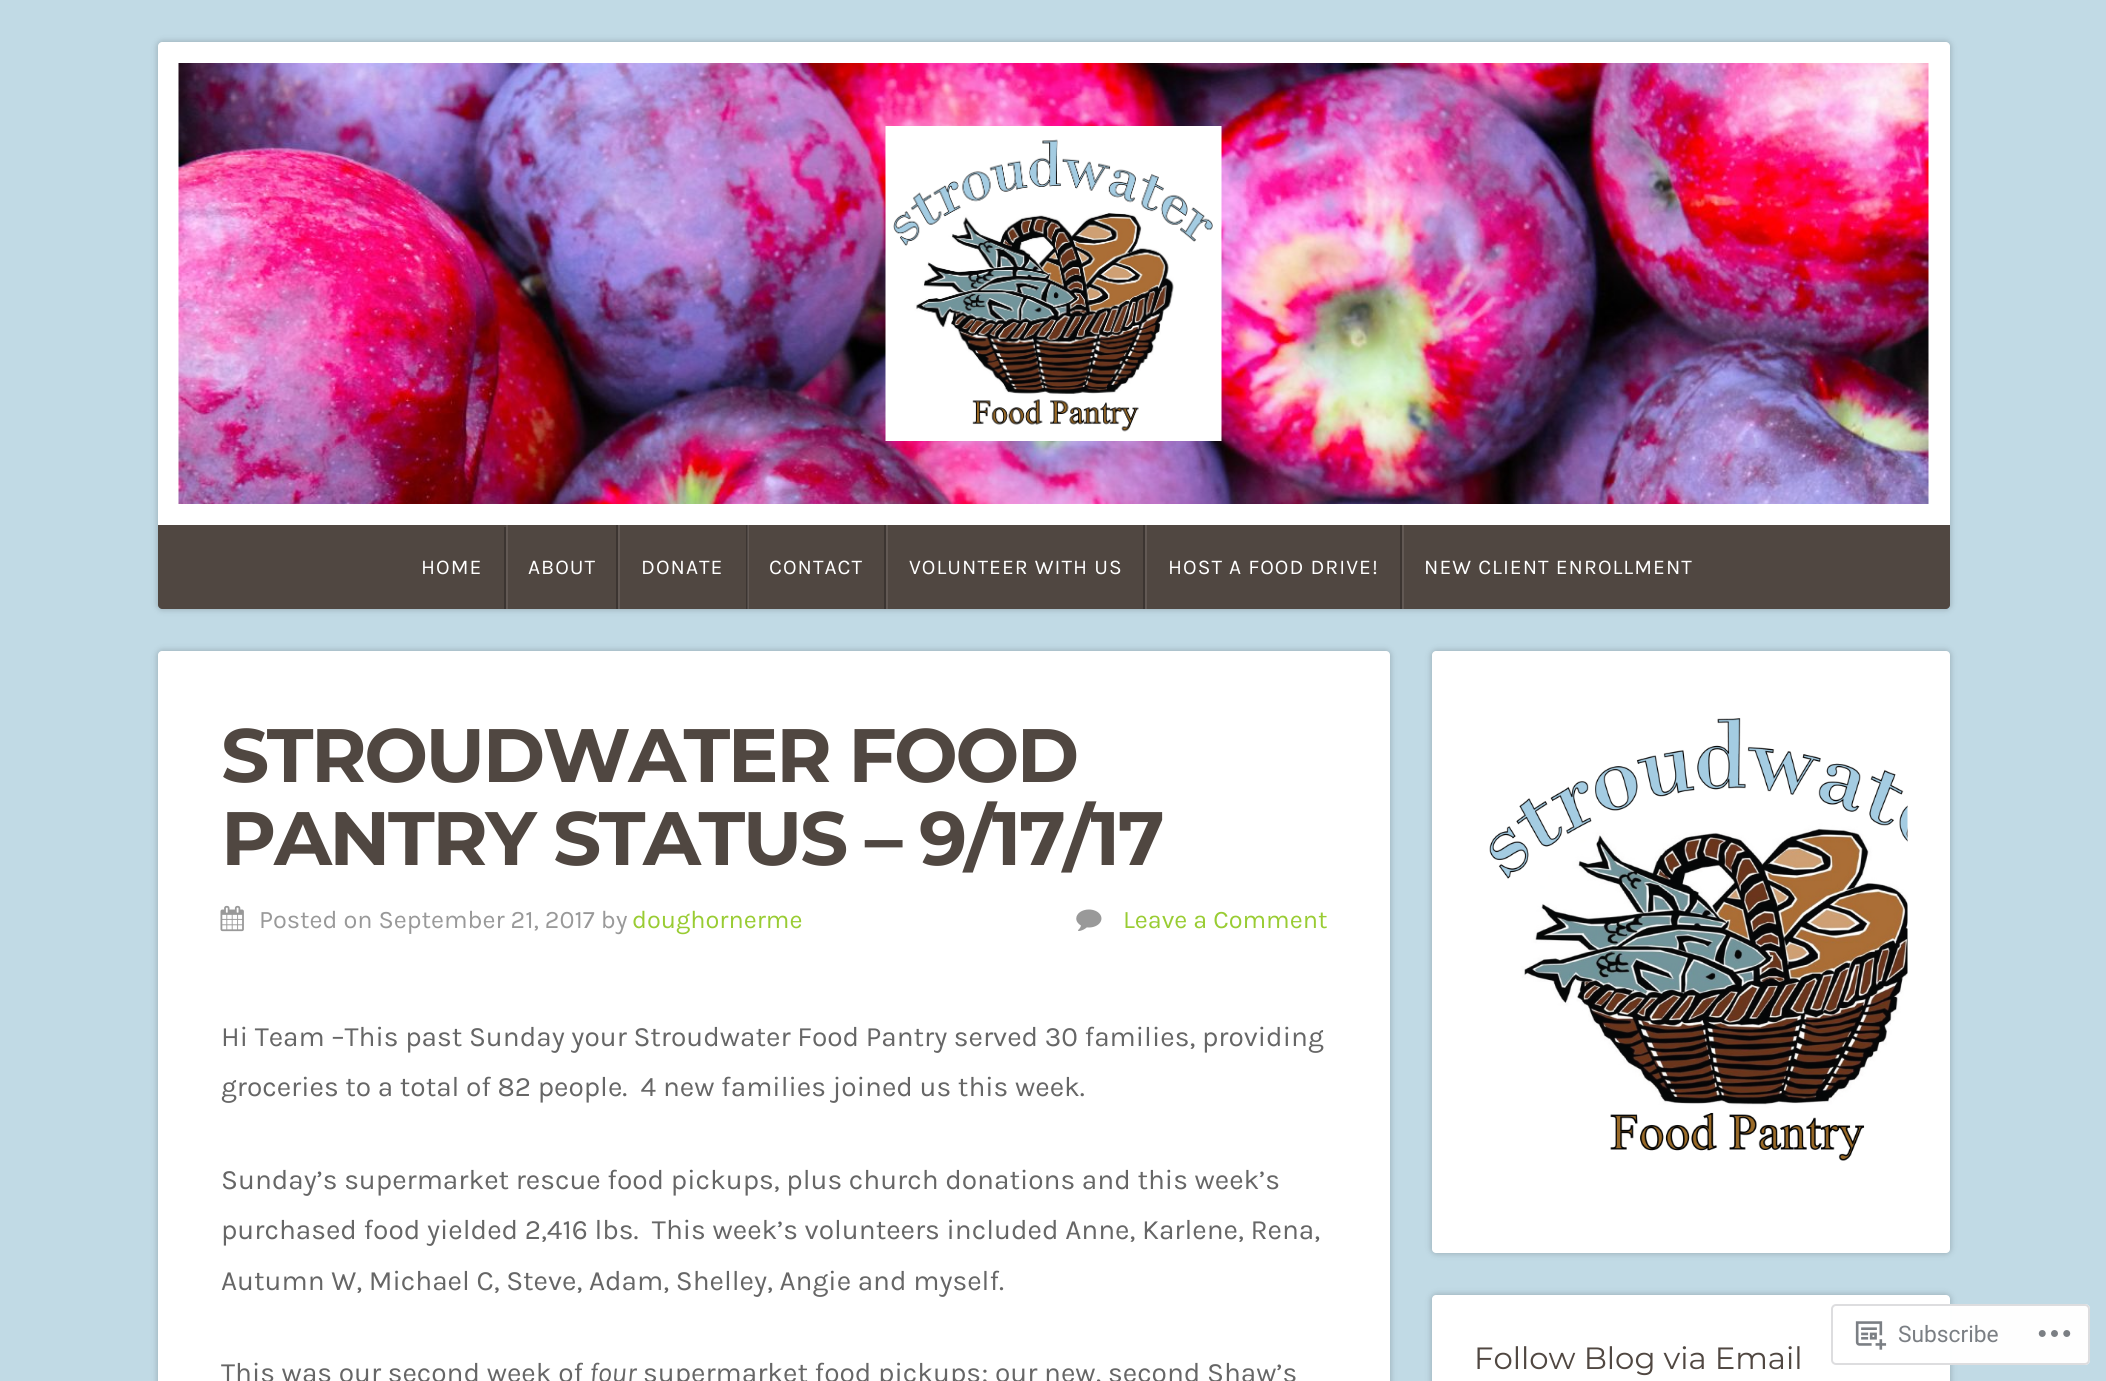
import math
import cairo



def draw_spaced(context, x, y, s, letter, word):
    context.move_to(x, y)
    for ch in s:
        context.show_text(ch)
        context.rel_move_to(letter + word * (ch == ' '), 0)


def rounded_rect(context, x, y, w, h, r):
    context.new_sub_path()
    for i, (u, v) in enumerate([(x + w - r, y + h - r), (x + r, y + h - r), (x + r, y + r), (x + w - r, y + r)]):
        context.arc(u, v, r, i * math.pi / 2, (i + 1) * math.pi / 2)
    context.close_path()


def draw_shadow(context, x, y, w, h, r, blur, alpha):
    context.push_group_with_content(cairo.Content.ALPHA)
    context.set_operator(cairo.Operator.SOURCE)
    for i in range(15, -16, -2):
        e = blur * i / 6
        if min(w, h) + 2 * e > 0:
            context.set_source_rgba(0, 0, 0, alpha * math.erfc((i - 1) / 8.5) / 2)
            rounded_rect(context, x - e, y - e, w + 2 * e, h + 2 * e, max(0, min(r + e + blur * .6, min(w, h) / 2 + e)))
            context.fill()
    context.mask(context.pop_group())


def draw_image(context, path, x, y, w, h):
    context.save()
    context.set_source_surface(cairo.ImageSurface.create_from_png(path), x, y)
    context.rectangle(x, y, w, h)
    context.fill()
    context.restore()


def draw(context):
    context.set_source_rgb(193 / 255, 218 / 255, 229 / 255)
    context.paint()
    context.set_source_rgb(0, 0, 0)
    draw_shadow(context, 158, 42, 1792, 567, 4, 3.5, 0.24)
    context.set_source_rgb(1, 1, 1)
    context.new_path()
    context.move_to(162, 42)
    context.line_to(1946, 42)
    context.curve_to(1948, 42, 1950, 44, 1950, 46)
    context.line_to(1950, 525)
    context.line_to(158, 525)
    context.line_to(158, 46)
    context.curve_to(158, 44, 160, 42, 162, 42)
    context.close_path()
    context.fill()
    draw_image(context, "images/1.png", 178, 63, 1751, 441)
    draw_image(context, "images/2.png", 885, 126, 337, 315)
    context.set_source_rgb(80 / 255, 71 / 255, 65 / 255)
    context.new_path()
    context.move_to(158, 525)
    context.line_to(1950, 525)
    context.line_to(1950, 605)
    context.curve_to(1950, 607, 1948, 609, 1946, 609)
    context.line_to(162, 609)
    context.curve_to(160, 609, 158, 607, 158, 605)
    context.close_path()
    context.fill()
    context.set_source_rgb(98 / 255, 89 / 255, 84 / 255)
    context.rectangle(748, 525, 1, 84)
    context.fill()
    context.set_source_rgb(60 / 255, 53 / 255, 49 / 255)
    context.rectangle(504, 527, 2, 82)
    context.fill()
    context.rectangle(616, 525, 2, 84)
    context.fill()
    context.set_source_rgb(98 / 255, 89 / 255, 84 / 255)
    context.rectangle(506, 525, 2, 84)
    context.fill()
    context.set_source_rgb(60 / 255, 53 / 255, 49 / 255)
    context.rectangle(746, 525, 1, 84)
    context.fill()
    context.set_source_rgb(80 / 255, 73 / 255, 70 / 255)
    context.rectangle(747, 525, 1, 84)
    context.fill()
    context.set_source_rgb(98 / 255, 89 / 255, 84 / 255)
    context.rectangle(618, 525, 2, 84)
    context.fill()
    context.set_source_rgb(60 / 255, 53 / 255, 49 / 255)
    context.rectangle(884, 525, 2, 84)
    context.fill()
    context.rectangle(1143, 525, 2, 84)
    context.fill()
    context.set_source_rgb(98 / 255, 89 / 255, 84 / 255)
    context.rectangle(886, 525, 2, 84)
    context.fill()
    context.set_source_rgb(60 / 255, 53 / 255, 49 / 255)
    context.rectangle(1400, 525, 2, 84)
    context.fill()
    context.set_source_rgb(98 / 255, 89 / 255, 84 / 255)
    context.rectangle(1145, 525, 2, 84)
    context.fill()
    context.rectangle(1402, 525, 2, 84)
    context.fill()
    context.set_source_rgb(0, 0, 0)
    draw_shadow(context, 158, 651, 1232, 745, 4, 3.5, 0.24)
    context.set_source_rgb(1, 1, 1)
    rounded_rect(context, 158, 651, 1232, 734, 4)
    context.fill()
    draw_image(context, "images/3.png", 220, 905, 24, 27)
    draw_image(context, "images/4.png", 1076, 909, 26, 22)
    context.set_source_rgb(0, 0, 0)
    draw_shadow(context, 1432, 651, 518, 602, 4, 3.5, 0.24)
    context.set_source_rgb(1, 1, 1)
    rounded_rect(context, 1432, 651, 518, 602, 4)
    context.fill()
    draw_image(context, "images/5.png", 1489, 718, 419, 443)
    context.set_source_rgb(0, 0, 0)
    draw_shadow(context, 1432, 1295, 518, 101, 4, 3.5, 0.24)
    context.set_source_rgb(1, 1, 1)
    rounded_rect(context, 1432, 1295, 518, 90, 4)
    context.fill()
    context.set_source_rgba(1, 1, 1, 0.98)
    rounded_rect(context, 1831, 1304, 259, 61, 5)
    context.fill()
    rounded_rect(context, 1832, 1305, 257, 59, 4)
    context.set_source_rgba(220 / 255, 220 / 255, 222 / 255, 0.98)
    context.stroke()
    draw_image(context, "images/6.png", 1855, 1321, 32, 29)
    draw_image(context, "images/7.png", 2038, 1330, 33, 7)
    context.select_font_face("Karla")
    context.set_font_size(21)
    context.set_source_rgb(1, 1, 1)
    draw_spaced(context, 421, 574, "HOME", 1.05, 0)
    draw_spaced(context, 528, 574, "ABOUT", 1.05, 0)
    draw_spaced(context, 641, 574, "DONATE", 1.05, 0)
    draw_spaced(context, 769, 574, "CONTACT", 1.05, 0)
    draw_spaced(context, 909, 574, "VOLUNTEER WITH US", 1.05, 0)
    draw_spaced(context, 1168, 574, "HOST A FOOD DRIVE!", 1.05, 0)
    draw_spaced(context, 1424, 574, "NEW CLIENT ENROLLMENT", 1.05, 0)
    context.select_font_face("Montserrat", cairo.FontSlant.NORMAL, cairo.FontWeight.BOLD)
    context.set_font_size(75.6)
    context.set_source_rgb(80 / 255, 71 / 255, 65 / 255)
    draw_spaced(context, 221, 782, "STROUDWATER FOOD", -2.45, 0)
    draw_spaced(context, 221, 865, "PANTRY STATUS – 9/17/17", -2.45, 0)
    context.select_font_face("Karla")
    context.set_font_size(25.25)
    context.set_source_rgb(153 / 255, 153 / 255, 153 / 255)
    context.move_to(259, 928)
    context.show_text("Posted on September 21, 2017 by")
    context.set_source_rgb(153 / 255, 204 / 255, 51 / 255)
    context.move_to(632, 928)
    context.show_text("doughornerme")
    context.move_to(1123, 928)
    context.show_text("Leave a Comment")
    context.set_font_size(28)
    context.set_source_rgb(102 / 255, 102 / 255, 102 / 255)
    context.move_to(221, 1046)
    context.show_text("Hi Team –This past Sunday your Stroudwater Food Pantry served 30 families, providing")
    context.move_to(221, 1096)
    context.show_text("groceries to a total of 82 people.  4 new families joined us this week.")
    context.move_to(221, 1189)
    context.show_text("Sunday’s supermarket rescue food pickups, plus church donations and this week’s")
    context.move_to(221, 1239)
    context.show_text("purchased food yielded 2,416 lbs.  This week’s volunteers included Anne, Karlene, Rena,")
    context.move_to(221, 1290)
    context.show_text("Autumn W, Michael C, Steve, Adam, Shelley, Angie and myself.")
    context.move_to(221, 1382)
    context.show_text("This was our second week of")
    context.select_font_face("Karla", cairo.FontSlant.ITALIC)
    context.move_to(589, 1382)
    context.show_text("four")
    context.select_font_face("Karla")
    context.move_to(643, 1382)
    context.show_text("supermarket food pickups; our new, second Shaw’s")
    context.select_font_face("Montserrat")
    context.set_font_size(30.75)
    context.set_source_rgb(80 / 255, 71 / 255, 65 / 255)
    context.move_to(1474, 1369)
    context.show_text("Follow Blog via Email")
    context.select_font_face("Roboto")
    context.set_font_size(22.75)
    context.set_source_rgb(123 / 255, 127 / 255, 132 / 255)
    context.move_to(1898, 1342)
    context.show_text("Subscribe")


surface = cairo.ImageSurface(cairo.Format.RGB24, 2106, 1381)
context = cairo.Context(surface)
options = cairo.FontOptions()
options.set_hint_metrics(cairo.HintMetrics.OFF)
options.set_hint_style(cairo.HintStyle.NONE)
context.set_font_options(options)
context.set_miter_limit(4)
draw(context)
surface.write_to_png("out.png")
